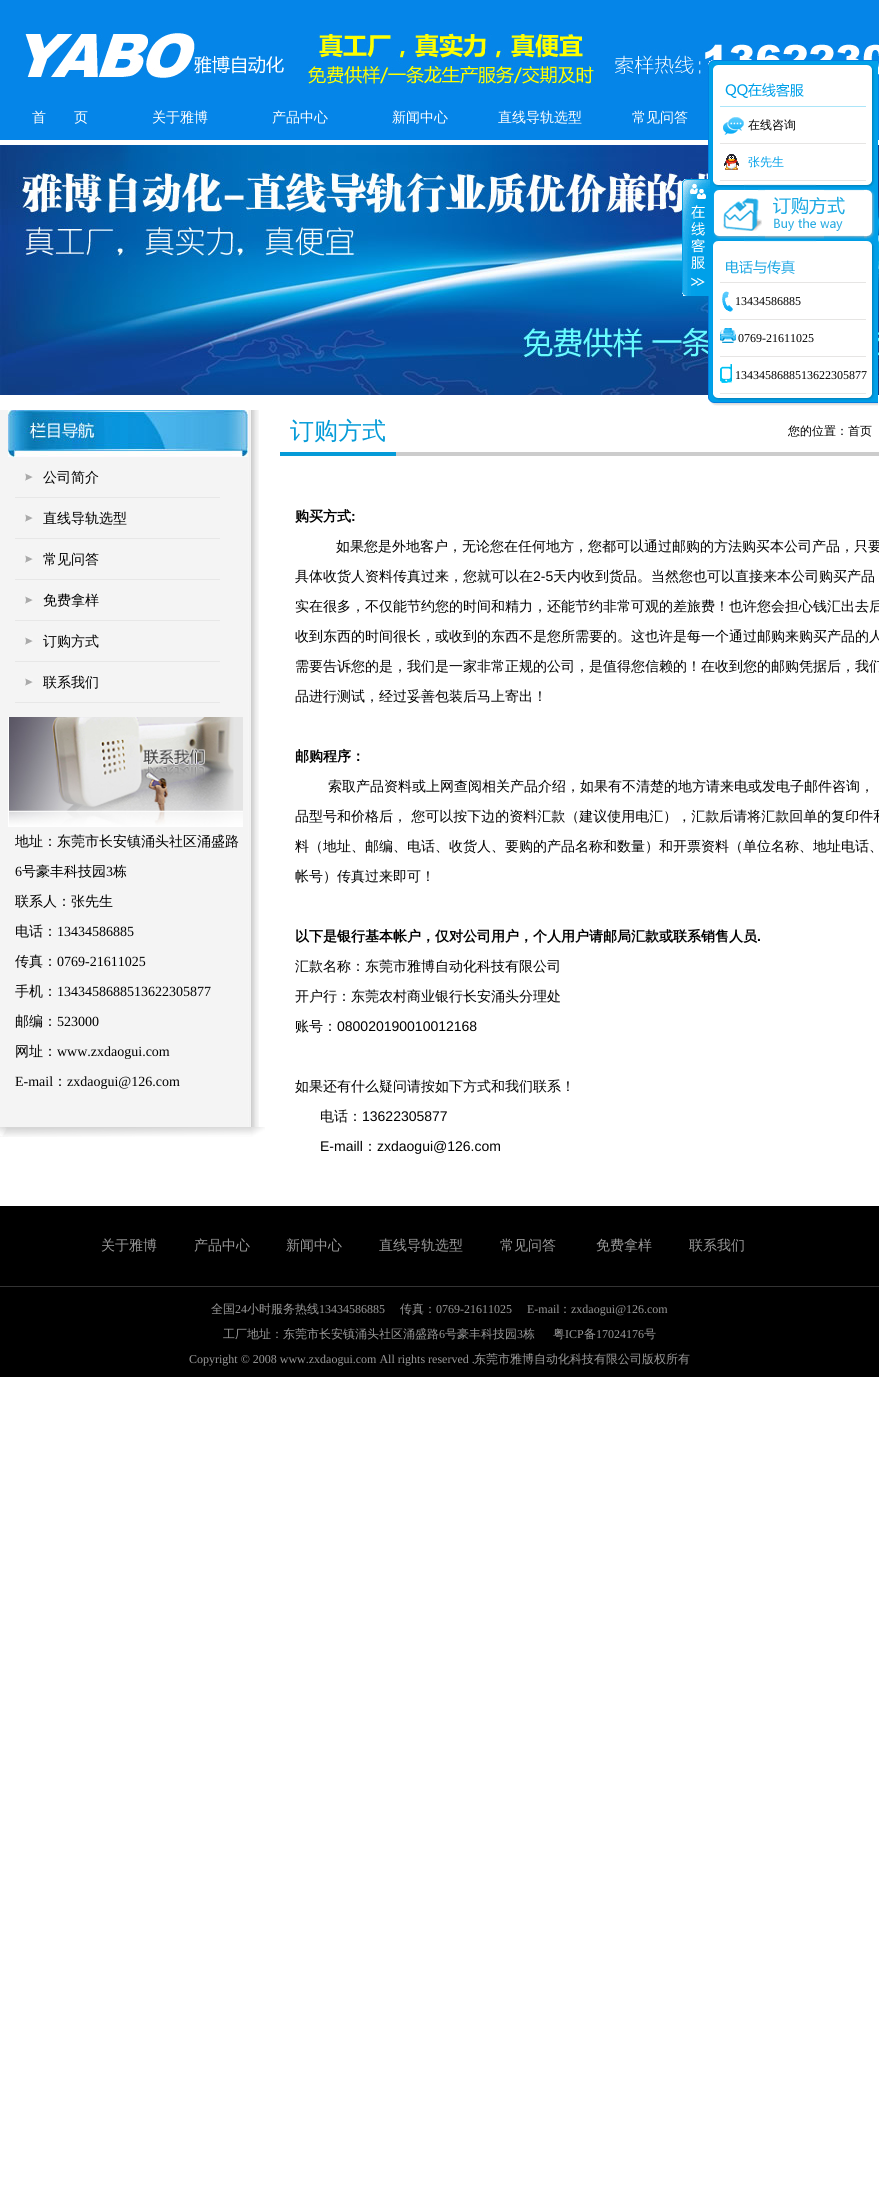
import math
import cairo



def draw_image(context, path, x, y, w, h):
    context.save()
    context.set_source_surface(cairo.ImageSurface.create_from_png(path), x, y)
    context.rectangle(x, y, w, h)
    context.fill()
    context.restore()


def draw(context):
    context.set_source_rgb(1, 1, 1)
    context.paint()
    context.set_source_rgb(5 / 255, 133 / 255, 232 / 255)
    context.rectangle(0, 0, 879, 140)
    context.fill()
    draw_image(context, "images/1.png", 25, 33, 259, 45)
    draw_image(context, "images/2.png", 308, 33, 571, 56)
    draw_image(context, "images/16.png", 0, 145, 879, 250)
    draw_image(context, "images/6.png", 708, 70, 170, 324)
    draw_image(context, "images/3.png", 682, 179, 28, 117)
    draw_image(context, "images/4.png", 708, 394, 170, 12)
    draw_image(context, "images/5.png", 708, 60, 170, 10)
    context.set_source_rgb(172 / 255, 229 / 255, 249 / 255)
    context.rectangle(720, 106, 146, 1)
    context.fill()
    draw_image(context, "images/7.png", 725, 83, 79, 15)
    context.set_source_rgb(230 / 255, 229 / 255, 228 / 255)
    context.rectangle(720, 143, 146, 1)
    context.fill()
    draw_image(context, "images/8.png", 723, 117, 21, 18)
    context.rectangle(720, 180, 146, 1)
    context.fill()
    draw_image(context, "images/9.png", 724, 154, 15, 16)
    draw_image(context, "images/10.png", 710, 181, 165, 65)
    draw_image(context, "images/11.png", 713, 189, 162, 50)
    context.rectangle(720, 282, 146, 1)
    context.fill()
    draw_image(context, "images/12.png", 726, 260, 69, 14)
    context.rectangle(720, 319, 146, 1)
    context.fill()
    draw_image(context, "images/13.png", 722, 291, 11, 21)
    context.rectangle(720, 356, 146, 1)
    context.fill()
    draw_image(context, "images/14.png", 720, 328, 16, 15)
    context.rectangle(720, 393, 146, 1)
    context.fill()
    draw_image(context, "images/15.png", 720, 364, 12, 19)
    draw_image(context, "images/17.png", 0, 410, 259, 717)
    draw_image(context, "images/18.png", 8, 410, 240, 47)
    context.set_source_rgb(231 / 255, 231 / 255, 231 / 255)
    context.rectangle(15, 497, 205, 1)
    context.fill()
    draw_image(context, "images/19.png", 25, 473, 8, 8)
    context.rectangle(15, 538, 205, 1)
    context.fill()
    draw_image(context, "images/19.png", 25, 514, 8, 8)
    context.rectangle(15, 579, 205, 1)
    context.fill()
    draw_image(context, "images/19.png", 25, 555, 8, 8)
    context.rectangle(15, 620, 205, 1)
    context.fill()
    draw_image(context, "images/19.png", 25, 596, 8, 8)
    context.rectangle(15, 661, 205, 1)
    context.fill()
    draw_image(context, "images/19.png", 25, 637, 8, 8)
    context.rectangle(15, 702, 205, 1)
    context.fill()
    draw_image(context, "images/19.png", 25, 678, 8, 8)
    draw_image(context, "images/20.png", 8, 717, 235, 110)
    draw_image(context, "images/21.png", 0, 1127, 265, 10)
    draw_image(context, "images/22.png", 280, 452, 599, 4)
    context.set_source_rgb(0, 0, 0)
    context.rectangle(0, 1206, 879, 80)
    context.fill()
    context.set_source_rgb(51 / 255, 51 / 255, 51 / 255)
    context.rectangle(0, 1286, 879, 1)
    context.fill()
    context.set_source_rgb(0, 0, 0)
    context.rectangle(0, 1287, 879, 90)
    context.fill()
    context.select_font_face("WenQuanYi Zen Hei Medium")
    context.set_font_size(14)
    context.set_source_rgb(1, 1, 1)
    context.move_to(32, 122)
    context.show_text("首　　页")
    context.move_to(152, 122)
    context.show_text("关于雅博")
    context.move_to(272, 122)
    context.show_text("产品中心")
    context.move_to(392, 122)
    context.show_text("新闻中心")
    context.move_to(498, 122)
    context.show_text("直线导轨选型")
    context.move_to(632, 122)
    context.show_text("常见问答")
    context.set_font_size(12)
    context.set_source_rgb(0, 0, 0)
    context.move_to(748, 129)
    context.show_text("在线咨询")
    context.set_source_rgb(0, 160 / 255, 233 / 255)
    context.move_to(748, 166)
    context.show_text("张先生")
    context.select_font_face("Liberation Serif")
    context.set_source_rgb(0, 0, 0)
    context.move_to(735, 305)
    context.show_text("13434586885")
    context.move_to(738, 342)
    context.show_text("0769-21611025")
    context.move_to(735, 379)
    context.show_text("1343458688513622305877")
    context.select_font_face("WenQuanYi Zen Hei Medium")
    context.set_font_size(14)
    context.move_to(43, 482)
    context.show_text("公司简介")
    context.move_to(43, 523)
    context.show_text("直线导轨选型")
    context.move_to(43, 564)
    context.show_text("常见问答")
    context.move_to(43, 605)
    context.show_text("免费拿样")
    context.move_to(43, 646)
    context.show_text("订购方式")
    context.move_to(43, 687)
    context.show_text("联系我们")
    context.move_to(15, 846)
    context.show_text("地址：东莞市长安镇涌头社区涌盛路")
    context.select_font_face("Liberation Serif")
    context.move_to(15, 876)
    context.show_text("6")
    context.select_font_face("WenQuanYi Zen Hei Medium")
    context.move_to(22, 876)
    context.show_text("号豪丰科技园")
    context.select_font_face("Liberation Serif")
    context.move_to(106, 876)
    context.show_text("3")
    context.select_font_face("WenQuanYi Zen Hei Medium")
    context.move_to(113, 876)
    context.show_text("栋")
    context.move_to(15, 906)
    context.show_text("联系人：张先生")
    context.move_to(15, 936)
    context.show_text("电话：")
    context.select_font_face("Liberation Serif")
    context.move_to(57, 936)
    context.show_text("13434586885")
    context.select_font_face("WenQuanYi Zen Hei Medium")
    context.move_to(15, 966)
    context.show_text("传真：")
    context.select_font_face("Liberation Serif")
    context.move_to(57, 966)
    context.show_text("0769-21611025")
    context.select_font_face("WenQuanYi Zen Hei Medium")
    context.move_to(15, 996)
    context.show_text("手机：")
    context.select_font_face("Liberation Serif")
    context.move_to(57, 996)
    context.show_text("1343458688513622305877")
    context.select_font_face("WenQuanYi Zen Hei Medium")
    context.move_to(15, 1026)
    context.show_text("邮编：")
    context.select_font_face("Liberation Serif")
    context.move_to(57, 1026)
    context.show_text("523000")
    context.select_font_face("WenQuanYi Zen Hei Medium")
    context.move_to(15, 1056)
    context.show_text("网址：")
    context.select_font_face("Liberation Serif")
    context.move_to(57, 1056)
    context.show_text("www.zxdaogui.com")
    context.move_to(15, 1086)
    context.show_text("E-mail")
    context.select_font_face("WenQuanYi Zen Hei Medium")
    context.move_to(53, 1086)
    context.show_text("：")
    context.select_font_face("Liberation Serif")
    context.move_to(67, 1086)
    context.show_text("zxdaogui@126.com")
    context.select_font_face("WenQuanYi Zen Hei Medium")
    context.set_font_size(24)
    context.set_source_rgb(5 / 255, 155 / 255, 216 / 255)
    context.move_to(290, 439)
    context.show_text("订购方式")
    context.set_font_size(12)
    context.set_source_rgb(0, 0, 0)
    context.move_to(788, 435)
    context.show_text("您的位置：首页")
    context.select_font_face("WenQuanYi Zen Hei", cairo.FontSlant.NORMAL, cairo.FontWeight.BOLD)
    context.set_font_size(14)
    context.move_to(295, 521)
    context.show_text("购买方式")
    context.select_font_face("Liberation Sans", cairo.FontSlant.NORMAL, cairo.FontWeight.BOLD)
    context.move_to(351, 521)
    context.show_text(":")
    context.select_font_face("WenQuanYi Zen Hei Medium")
    context.move_to(336, 551)
    context.show_text("如果您是外地客户，无论您在任何地方，您都可以通过邮购的方法购买本公司产品，只要")
    context.move_to(295, 581)
    context.show_text("具体收货人资料传真过来，您就可以在")
    context.select_font_face("Liberation Sans")
    context.move_to(533, 581)
    context.show_text("2-5")
    context.select_font_face("WenQuanYi Zen Hei Medium")
    context.move_to(553, 581)
    context.show_text("天内收到货品。当然您也可以直接来本公司购买产品")
    context.move_to(295, 611)
    context.show_text("实在很多，不仅能节约您的时间和精力，还能节约非常可观的差旅费！也许您会担心钱汇出去后")
    context.move_to(295, 641)
    context.show_text("收到东西的时间很长，或收到的东西不是您所需要的。这也许是每一个通过邮购来购买产品的人")
    context.move_to(295, 671)
    context.show_text("需要告诉您的是，我们是一家非常正规的公司，是值得您信赖的！在收到您的邮购凭据后，我们")
    context.move_to(295, 701)
    context.show_text("品进行测试，经过妥善包装后马上寄出！")
    context.select_font_face("WenQuanYi Zen Hei", cairo.FontSlant.NORMAL, cairo.FontWeight.BOLD)
    context.move_to(295, 761)
    context.show_text("邮购程序：")
    context.select_font_face("WenQuanYi Zen Hei Medium")
    context.move_to(328, 791)
    context.show_text("索取产品资料或上网查阅相关产品介绍，如果有不清楚的地方请来电或发电子邮件咨询，")
    context.move_to(295, 821)
    context.show_text("品型号和价格后， 您可以按下边的资料汇款（建议使用电汇），汇款后请将汇款回单的复印件和")
    context.move_to(295, 851)
    context.show_text("料（地址、邮编、电话、收货人、要购的产品名称和数量）和开票资料（单位名称、地址电话、")
    context.move_to(295, 881)
    context.show_text("帐号）传真过来即可！")
    context.select_font_face("WenQuanYi Zen Hei", cairo.FontSlant.NORMAL, cairo.FontWeight.BOLD)
    context.move_to(295, 941)
    context.show_text("以下是银行基本帐户，仅对公司用户，个人用户请邮局汇款或联系销售人员")
    context.select_font_face("Liberation Sans", cairo.FontSlant.NORMAL, cairo.FontWeight.BOLD)
    context.move_to(757, 941)
    context.show_text(".")
    context.select_font_face("WenQuanYi Zen Hei Medium")
    context.move_to(295, 971)
    context.show_text("汇款名称：东莞市雅博自动化科技有限公司")
    context.move_to(295, 1001)
    context.show_text("开户行：东莞农村商业银行长安涌头分理处")
    context.move_to(295, 1031)
    context.show_text("账号：")
    context.select_font_face("Liberation Sans")
    context.move_to(337, 1031)
    context.show_text("080020190010012168")
    context.select_font_face("WenQuanYi Zen Hei Medium")
    context.move_to(295, 1091)
    context.show_text("如果还有什么疑问请按如下方式和我们联系！")
    context.move_to(320, 1121)
    context.show_text("电话：")
    context.select_font_face("Liberation Sans")
    context.move_to(362, 1121)
    context.show_text("13622305877")
    context.move_to(320, 1151)
    context.show_text("E-maill")
    context.select_font_face("WenQuanYi Zen Hei Medium")
    context.move_to(363, 1151)
    context.show_text("：")
    context.select_font_face("Liberation Sans")
    context.move_to(377, 1151)
    context.show_text("zxdaogui@126.com")
    context.select_font_face("WenQuanYi Zen Hei Medium")
    context.set_source_rgb(153 / 255, 153 / 255, 153 / 255)
    context.move_to(101, 1250)
    context.show_text("关于雅博")
    context.move_to(194, 1250)
    context.show_text("产品中心")
    context.move_to(286, 1250)
    context.show_text("新闻中心")
    context.move_to(379, 1250)
    context.show_text("直线导轨选型")
    context.move_to(500, 1250)
    context.show_text("常见问答")
    context.move_to(596, 1250)
    context.show_text("免费拿样")
    context.move_to(689, 1250)
    context.show_text("联系我们")
    context.set_font_size(12)
    context.move_to(211, 1313)
    context.show_text("全国")
    context.select_font_face("Liberation Serif")
    context.move_to(235, 1313)
    context.show_text("24")
    context.select_font_face("WenQuanYi Zen Hei Medium")
    context.move_to(247, 1313)
    context.show_text("小时服务热线")
    context.select_font_face("Liberation Serif")
    context.move_to(319, 1313)
    context.show_text("13434586885")
    context.select_font_face("WenQuanYi Zen Hei Medium")
    context.move_to(400, 1313)
    context.show_text("传真：")
    context.select_font_face("Liberation Serif")
    context.move_to(436, 1313)
    context.show_text("0769-21611025")
    context.move_to(527, 1313)
    context.show_text("E-mail")
    context.select_font_face("WenQuanYi Zen Hei Medium")
    context.move_to(559, 1313)
    context.show_text("：")
    context.select_font_face("Liberation Serif")
    context.move_to(571, 1313)
    context.show_text("zxdaogui@126.com")
    context.select_font_face("WenQuanYi Zen Hei Medium")
    context.move_to(223, 1338)
    context.show_text("工厂地址：东莞市长安镇涌头社区涌盛路")
    context.select_font_face("Liberation Serif")
    context.move_to(439, 1338)
    context.show_text("6")
    context.select_font_face("WenQuanYi Zen Hei Medium")
    context.move_to(445, 1338)
    context.show_text("号豪丰科技园")
    context.select_font_face("Liberation Serif")
    context.move_to(517, 1338)
    context.show_text("3")
    context.select_font_face("WenQuanYi Zen Hei Medium")
    context.move_to(523, 1338)
    context.show_text("栋")
    context.move_to(553, 1338)
    context.show_text("粤")
    context.select_font_face("Liberation Serif")
    context.move_to(565, 1338)
    context.show_text("ICP")
    context.select_font_face("WenQuanYi Zen Hei Medium")
    context.move_to(584, 1338)
    context.show_text("备")
    context.select_font_face("Liberation Serif")
    context.move_to(596, 1338)
    context.show_text("17024176")
    context.select_font_face("WenQuanYi Zen Hei Medium")
    context.move_to(644, 1338)
    context.show_text("号")
    context.select_font_face("Liberation Serif")
    context.move_to(189, 1363)
    context.show_text("Copyright © 2008 www.zxdaogui.com All rights reserved .")
    context.select_font_face("WenQuanYi Zen Hei Medium")
    context.move_to(474, 1363)
    context.show_text("东莞市雅博自动化科技有限公司版权所有")


surface = cairo.ImageSurface(cairo.Format.RGB24, 879, 2211)
context = cairo.Context(surface)
options = cairo.FontOptions()
options.set_hint_metrics(cairo.HintMetrics.OFF)
options.set_hint_style(cairo.HintStyle.NONE)
context.set_font_options(options)
context.set_miter_limit(4)
draw(context)
surface.write_to_png("out.png")
